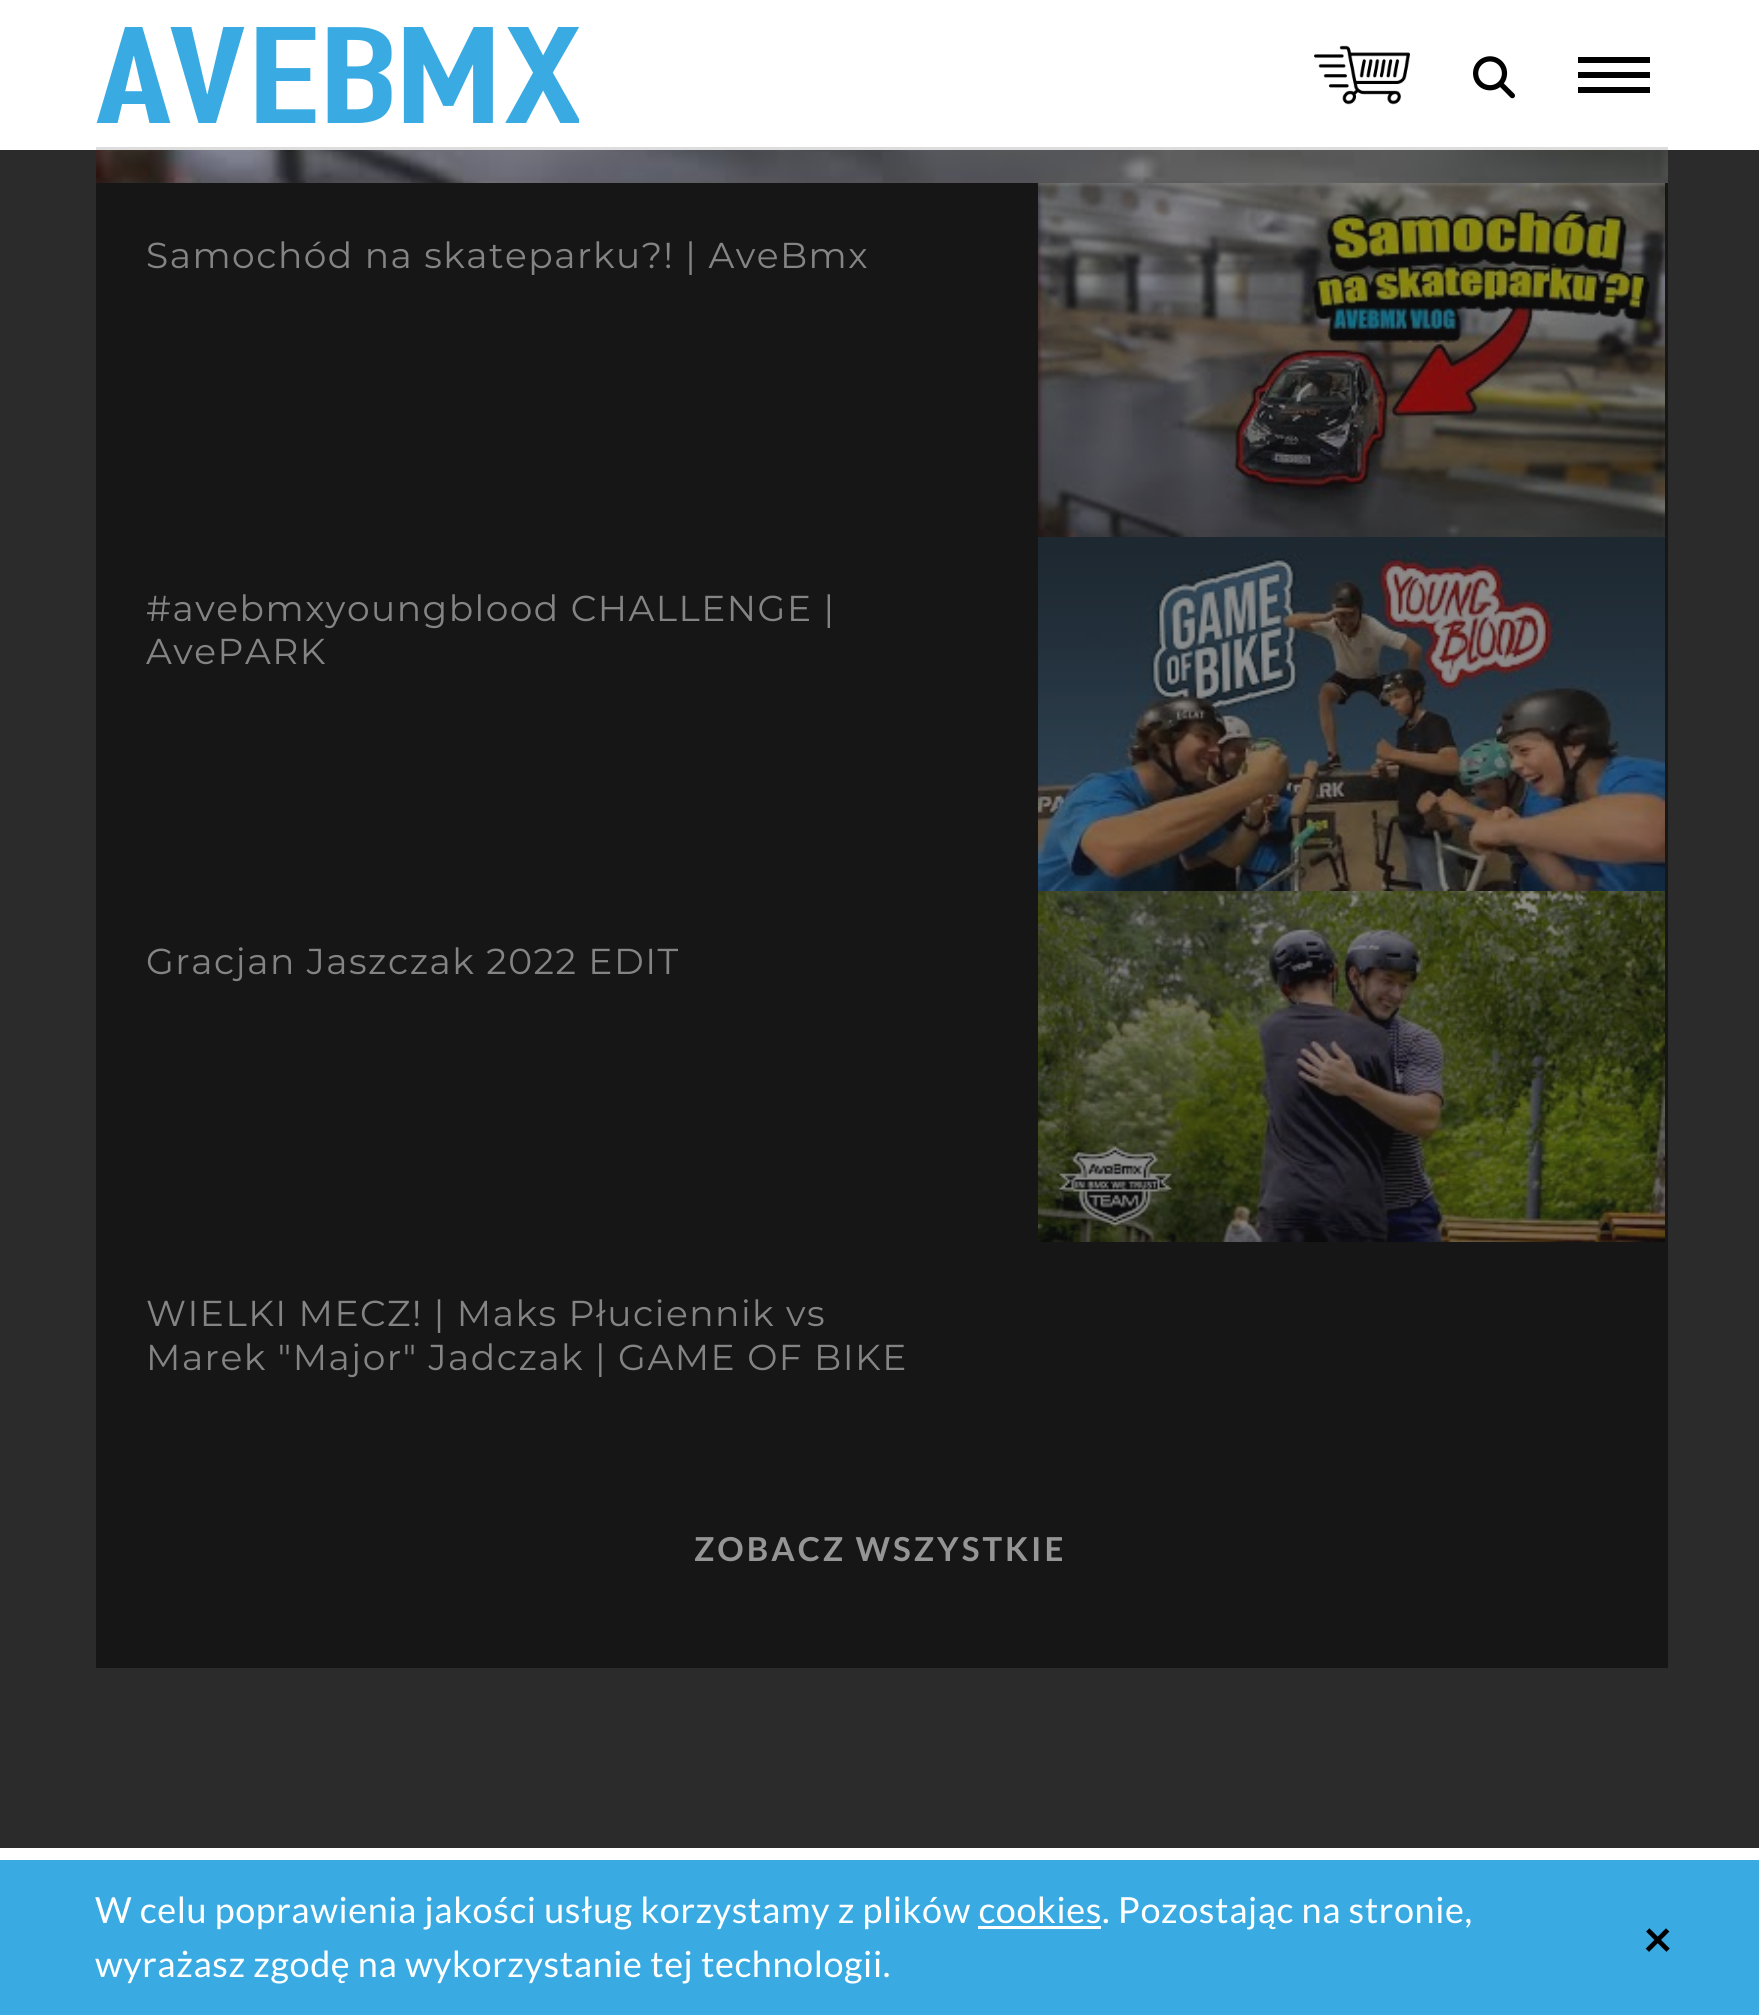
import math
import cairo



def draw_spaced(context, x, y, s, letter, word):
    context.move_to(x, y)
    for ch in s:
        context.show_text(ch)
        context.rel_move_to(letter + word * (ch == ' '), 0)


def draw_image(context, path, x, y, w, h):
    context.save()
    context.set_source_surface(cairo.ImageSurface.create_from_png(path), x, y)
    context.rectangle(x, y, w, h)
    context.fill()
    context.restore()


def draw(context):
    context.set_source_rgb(1, 1, 1)
    context.paint()
    context.set_source_rgb(221 / 255, 221 / 255, 221 / 255)
    context.rectangle(96, 147, 1572, 3)
    context.fill()
    draw_image(context, "images/1.png", 96, 27, 483, 96)
    draw_image(context, "images/2.png", 1314, 45, 96, 60)
    draw_image(context, "images/3.png", 1473, 56, 42, 43)
    context.set_source_rgb(0, 0, 0)
    context.rectangle(1578, 72, 72, 6)
    context.fill()
    context.rectangle(1578, 57, 72, 6)
    context.fill()
    context.rectangle(1578, 87, 72, 6)
    context.fill()
    context.set_source_rgb(43 / 255, 43 / 255, 43 / 255)
    context.rectangle(0, 150, 1759, 1698)
    context.fill()
    draw_image(context, "images/4.png", 96, 150, 1572, 33)
    context.set_source_rgb(22 / 255, 22 / 255, 22 / 255)
    context.rectangle(96, 183, 1572, 1485)
    context.fill()
    draw_image(context, "images/5.png", 1038, 183, 627, 354)
    draw_image(context, "images/6.png", 1038, 537, 627, 354)
    draw_image(context, "images/7.png", 1038, 891, 627, 351)
    context.set_source_rgb(57 / 255, 171 / 255, 226 / 255)
    context.rectangle(0, 1860, 1759, 155)
    context.fill()
    context.set_source_rgb(1, 1, 1)
    context.rectangle(978, 1926, 123, 3)
    context.fill()
    context.select_font_face("Montserrat")
    context.set_font_size(36)
    context.set_source_rgb(132 / 255, 132 / 255, 132 / 255)
    draw_spaced(context, 146, 268, "Samochód na skateparku?! | AveBmx", 1.5, 0)
    draw_spaced(context, 146, 621, "#avebmxyoungblood CHALLENGE |", 1.5, 0)
    draw_spaced(context, 146, 664, "AvePARK", 1.5, 0)
    draw_spaced(context, 146, 974, "Gracjan Jaszczak 2022 EDIT", 1.5, 0)
    draw_spaced(context, 146, 1326, "WIELKI MECZ! | Maks Płuciennik vs", 1.5, 0)
    draw_spaced(context, 146, 1370, "Marek \"Major\" Jadczak | GAME OF BIKE", 1.5, 0)
    context.select_font_face("Lato", cairo.FontSlant.NORMAL, cairo.FontWeight.BOLD)
    context.set_font_size(33)
    context.set_source_rgb(149 / 255, 149 / 255, 149 / 255)
    draw_spaced(context, 694, 1561, "ZOBACZ WSZYSTKIE", 3, 0)
    context.select_font_face("Lato")
    context.set_font_size(36)
    context.set_source_rgb(1, 1, 1)
    draw_spaced(context, 95, 1923, "W celu poprawienia jakości usług korzystamy z plików cookies. Pozostając na stronie,", 0.6, 0)
    draw_spaced(context, 95, 1977, "wyrażasz zgodę na wykorzystanie tej technologii.", 0.6, 0)
    context.select_font_face("Lato", cairo.FontSlant.NORMAL, cairo.FontWeight.BOLD)
    context.set_font_size(51)
    context.set_source_rgb(0, 0, 0)
    context.move_to(1643, 1957)
    context.show_text("×")


surface = cairo.ImageSurface(cairo.Format.RGB24, 1759, 2015)
context = cairo.Context(surface)
options = cairo.FontOptions()
options.set_hint_metrics(cairo.HintMetrics.OFF)
options.set_hint_style(cairo.HintStyle.NONE)
context.set_font_options(options)
context.set_miter_limit(4)
draw(context)
surface.write_to_png("out.png")
